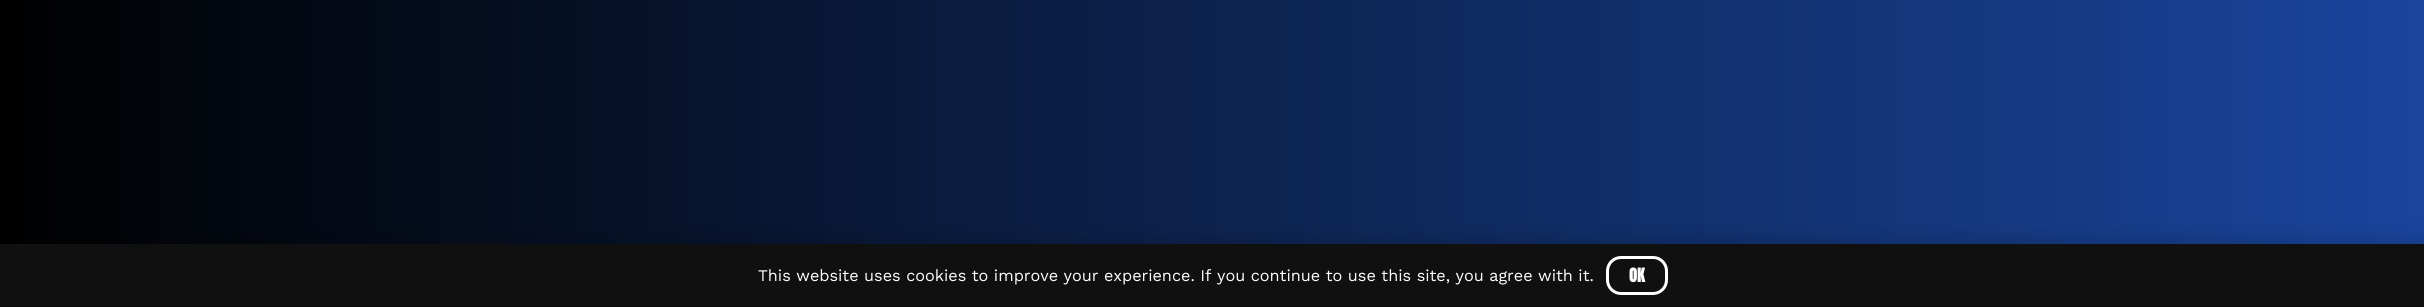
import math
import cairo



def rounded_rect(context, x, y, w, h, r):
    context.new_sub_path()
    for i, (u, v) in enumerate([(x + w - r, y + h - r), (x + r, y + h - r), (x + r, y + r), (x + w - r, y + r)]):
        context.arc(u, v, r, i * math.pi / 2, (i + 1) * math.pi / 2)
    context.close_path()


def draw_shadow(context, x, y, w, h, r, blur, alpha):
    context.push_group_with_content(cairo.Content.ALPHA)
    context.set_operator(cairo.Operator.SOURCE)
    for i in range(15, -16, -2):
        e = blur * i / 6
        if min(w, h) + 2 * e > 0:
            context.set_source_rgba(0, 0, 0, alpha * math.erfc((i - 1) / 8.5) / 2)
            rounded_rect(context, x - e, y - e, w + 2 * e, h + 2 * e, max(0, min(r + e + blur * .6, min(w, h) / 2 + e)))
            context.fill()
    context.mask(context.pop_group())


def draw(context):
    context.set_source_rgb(1, 1, 1)
    context.paint()
    gradient = cairo.LinearGradient(0, 156, 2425, 156)
    gradient.add_color_stop_rgba(0, 0, 0, 0, 1)
    gradient.add_color_stop_rgba(1, 25 / 255, 69 / 255, 157 / 255, 1)
    context.set_source(gradient)
    context.rectangle(0, 0, 2424, 244)
    context.fill()
    context.set_source_rgb(0, 0, 0)
    draw_shadow(context, 0, 238, 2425, 63, 0, 9.5, 0.15)
    context.set_source_rgb(16 / 255, 16 / 255, 16 / 255)
    context.rectangle(0, 244, 2424, 63)
    context.fill()
    rounded_rect(context, 1607.5, 257.5, 59, 36, 13.5)
    context.set_source_rgb(1, 1, 1)
    context.set_line_width(3)
    context.stroke()
    context.select_font_face("Work Sans")
    context.set_font_size(16.25)
    context.move_to(758, 281)
    context.show_text("This website uses cookies to improve your experience. If you continue to use this site, you agree with it.")
    context.select_font_face("Anton", cairo.FontSlant.NORMAL, cairo.FontWeight.BOLD)
    context.move_to(1629, 282)
    context.show_text("OK")


surface = cairo.ImageSurface(cairo.Format.RGB24, 2424, 307)
context = cairo.Context(surface)
options = cairo.FontOptions()
options.set_hint_metrics(cairo.HintMetrics.OFF)
options.set_hint_style(cairo.HintStyle.NONE)
context.set_font_options(options)
context.set_miter_limit(4)
draw(context)
surface.write_to_png("out.png")
